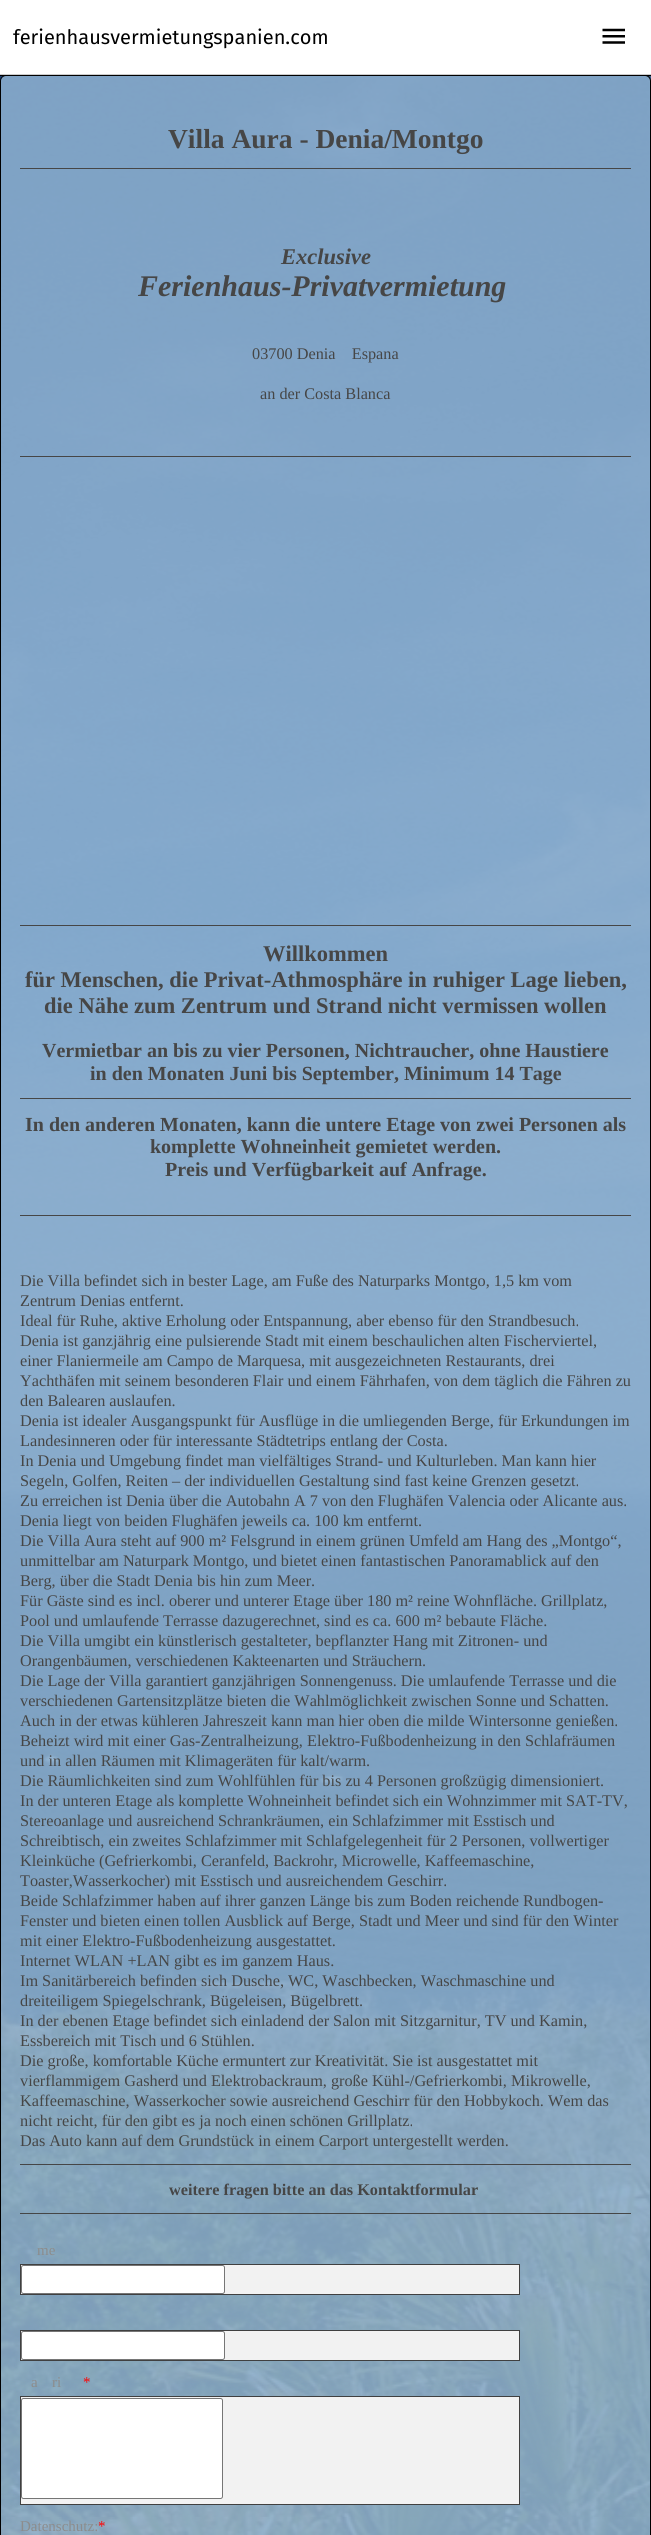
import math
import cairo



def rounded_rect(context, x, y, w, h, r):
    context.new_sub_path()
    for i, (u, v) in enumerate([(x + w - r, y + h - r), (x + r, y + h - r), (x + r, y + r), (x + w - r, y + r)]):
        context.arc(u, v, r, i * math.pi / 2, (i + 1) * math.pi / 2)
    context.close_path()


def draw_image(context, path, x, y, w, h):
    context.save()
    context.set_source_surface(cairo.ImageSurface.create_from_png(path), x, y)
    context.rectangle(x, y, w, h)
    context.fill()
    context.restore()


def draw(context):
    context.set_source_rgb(1, 1, 1)
    context.paint()
    draw_image(context, "images/1.png", 0, 76, 651, 2459)
    context.set_source_rgb(204 / 255, 204 / 255, 204 / 255)
    context.rectangle(0, 74, 651, 1)
    context.fill()
    context.set_source_rgba(138 / 255, 173 / 255, 205 / 255, 0.9)
    rounded_rect(context, 0.5, 75.5, 650, 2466, 5.5)
    context.fill_preserve()
    context.set_source_rgb(0, 0, 0)
    context.set_line_width(1)
    context.stroke()
    context.rectangle(0, 75, 651, 1)
    context.fill()
    draw_image(context, "images/2.png", 602, 28, 23, 16)
    context.set_source_rgb(70 / 255, 70 / 255, 70 / 255)
    context.rectangle(20, 168, 611, 1)
    context.fill()
    context.rectangle(20, 456, 611, 1)
    context.fill()
    context.rectangle(20, 925, 611, 1)
    context.fill()
    context.rectangle(20, 1098, 611, 1)
    context.fill()
    context.rectangle(20, 1215, 611, 1)
    context.fill()
    context.rectangle(20, 2164, 611, 1)
    context.fill()
    context.rectangle(20, 2213, 611, 1)
    context.fill()
    context.set_source_rgb(242 / 255, 242 / 255, 242 / 255)
    context.rectangle(20.5, 2264.5, 499, 30)
    context.fill_preserve()
    context.set_source_rgb(64 / 255, 64 / 255, 64 / 255)
    context.stroke()
    context.set_source_rgb(1, 1, 1)
    rounded_rect(context, 21.5, 2265.5, 203, 28, 2)
    context.fill_preserve()
    context.set_source_rgb(118 / 255, 118 / 255, 118 / 255)
    context.stroke()
    context.set_source_rgb(242 / 255, 242 / 255, 242 / 255)
    context.rectangle(20.5, 2330.5, 499, 30)
    context.fill_preserve()
    context.set_source_rgb(64 / 255, 64 / 255, 64 / 255)
    context.stroke()
    context.set_source_rgb(1, 1, 1)
    rounded_rect(context, 21.5, 2331.5, 203, 28, 2)
    context.fill_preserve()
    context.set_source_rgb(118 / 255, 118 / 255, 118 / 255)
    context.stroke()
    context.set_source_rgb(242 / 255, 242 / 255, 242 / 255)
    context.rectangle(20.5, 2396.5, 499, 108)
    context.fill_preserve()
    context.set_source_rgb(64 / 255, 64 / 255, 64 / 255)
    context.stroke()
    context.set_source_rgb(1, 1, 1)
    rounded_rect(context, 21.5, 2398.5, 201, 100, 2)
    context.fill_preserve()
    context.set_source_rgb(118 / 255, 118 / 255, 118 / 255)
    context.stroke()
    context.select_font_face("Fira Sans")
    context.set_font_size(20)
    context.set_source_rgb(0, 0, 0)
    context.move_to(13, 44)
    context.show_text("ferienhausvermietungspanien.com")
    context.select_font_face("Liberation Serif", cairo.FontSlant.NORMAL, cairo.FontWeight.BOLD)
    context.set_font_size(27.5)
    context.set_source_rgb(70 / 255, 70 / 255, 70 / 255)
    context.move_to(168, 148)
    context.show_text("Villa Aura - Denia/Montgo")
    context.select_font_face("Liberation Serif", cairo.FontSlant.ITALIC, cairo.FontWeight.BOLD)
    context.set_font_size(22.5)
    context.move_to(281, 264)
    context.show_text("Exclusive")
    context.set_font_size(30)
    context.move_to(138, 296)
    context.show_text("Ferienhaus-Privatvermietung")
    context.select_font_face("Liberation Serif")
    context.set_font_size(16.25)
    context.move_to(252, 359)
    context.show_text("03700 Denia    Espana")
    context.move_to(260, 399)
    context.show_text("an der Costa Blanca")
    context.select_font_face("Liberation Serif", cairo.FontSlant.NORMAL, cairo.FontWeight.BOLD)
    context.set_font_size(22.5)
    context.move_to(263, 961)
    context.show_text("Willkommen")
    context.move_to(25, 987)
    context.show_text("für Menschen, die Privat-Athmosphäre in ruhiger Lage lieben,")
    context.move_to(44, 1013)
    context.show_text("die Nähe zum Zentrum und Strand nicht vermissen wollen")
    context.set_font_size(20)
    context.move_to(42, 1057)
    context.show_text("Vermietbar an bis zu vier Personen, Nichtraucher, ohne Haustiere")
    context.move_to(90, 1080)
    context.show_text("in den Monaten Juni bis September, Minimum 14 Tage")
    context.move_to(25, 1131)
    context.show_text("In den anderen Monaten, kann die untere Etage von zwei Personen als")
    context.move_to(150, 1153)
    context.show_text("komplette Wohneinheit gemietet werden.")
    context.move_to(165, 1176)
    context.show_text("Preis und Verfügbarkeit auf Anfrage.")
    context.select_font_face("Liberation Serif")
    context.set_font_size(16.25)
    context.move_to(20, 1286)
    context.show_text("Die Villa befindet sich in bester Lage, am Fuße des Naturparks Montgo, 1,5 km vom")
    context.move_to(20, 1306)
    context.show_text("Zentrum Denias entfernt.")
    context.move_to(20, 1326)
    context.show_text("Ideal für Ruhe, aktive Erholung oder Entspannung, aber ebenso für den Strandbesuch.")
    context.move_to(20, 1346)
    context.show_text("Denia ist ganzjährig eine pulsierende Stadt mit einem beschaulichen alten Fischerviertel,")
    context.move_to(20, 1366)
    context.show_text("einer Flaniermeile am Campo de Marquesa, mit ausgezeichneten Restaurants, drei")
    context.move_to(20, 1386)
    context.show_text("Yachthäfen mit seinem besonderen Flair und einem Fährhafen, von dem täglich die Fähren zu")
    context.move_to(20, 1406)
    context.show_text("den Balearen auslaufen.")
    context.move_to(20, 1426)
    context.show_text("Denia ist idealer Ausgangspunkt für Ausflüge in die umliegenden Berge, für Erkundungen im")
    context.move_to(20, 1446)
    context.show_text("Landesinneren oder für interessante Städtetrips entlang der Costa.")
    context.move_to(20, 1466)
    context.show_text("In Denia und Umgebung findet man vielfältiges Strand- und Kulturleben. Man kann hier")
    context.move_to(20, 1486)
    context.show_text("Segeln, Golfen, Reiten – der individuellen Gestaltung sind fast keine Grenzen gesetzt.")
    context.move_to(20, 1506)
    context.show_text("Zu erreichen ist Denia über die Autobahn A 7 von den Flughäfen Valencia oder Alicante aus.")
    context.move_to(20, 1526)
    context.show_text("Denia liegt von beiden Flughäfen jeweils ca. 100 km entfernt.")
    context.move_to(20, 1546)
    context.show_text("Die Villa Aura steht auf 900 m² Felsgrund in einem grünen Umfeld am Hang des „Montgo“,")
    context.move_to(20, 1566)
    context.show_text("unmittelbar am Naturpark Montgo, und bietet einen fantastischen Panoramablick auf den")
    context.move_to(20, 1586)
    context.show_text("Berg, über die Stadt Denia bis hin zum Meer.")
    context.move_to(20, 1606)
    context.show_text("Für Gäste sind es incl. oberer und unterer Etage über 180 m² reine Wohnfläche. Grillplatz,")
    context.move_to(20, 1626)
    context.show_text("Pool und umlaufende Terrasse dazugerechnet, sind es ca. 600 m² bebaute Fläche.")
    context.move_to(20, 1646)
    context.show_text("Die Villa umgibt ein künstlerisch gestalteter, bepflanzter Hang mit Zitronen- und")
    context.move_to(20, 1666)
    context.show_text("Orangenbäumen, verschiedenen Kakteenarten und Sträuchern.")
    context.move_to(20, 1686)
    context.show_text("Die Lage der Villa garantiert ganzjährigen Sonnengenuss. Die umlaufende Terrasse und die")
    context.move_to(20, 1706)
    context.show_text("verschiedenen Gartensitzplätze bieten die Wahlmöglichkeit zwischen Sonne und Schatten.")
    context.move_to(20, 1726)
    context.show_text("Auch in der etwas kühleren Jahreszeit kann man hier oben die milde Wintersonne genießen.")
    context.move_to(20, 1746)
    context.show_text("Beheizt wird mit einer Gas-Zentralheizung, Elektro-Fußbodenheizung in den Schlafräumen")
    context.move_to(20, 1766)
    context.show_text("und in allen Räumen mit Klimageräten für kalt/warm.")
    context.move_to(20, 1786)
    context.show_text("Die Räumlichkeiten sind zum Wohlfühlen für bis zu 4 Personen großzügig dimensioniert.")
    context.move_to(20, 1806)
    context.show_text("In der unteren Etage als komplette Wohneinheit befindet sich ein Wohnzimmer mit SAT-TV,")
    context.move_to(20, 1826)
    context.show_text("Stereoanlage und ausreichend Schrankräumen, ein Schlafzimmer mit Esstisch und")
    context.move_to(20, 1846)
    context.show_text("Schreibtisch, ein zweites Schlafzimmer mit Schlafgelegenheit für 2 Personen, vollwertiger")
    context.move_to(20, 1866)
    context.show_text("Kleinküche (Gefrierkombi, Ceranfeld, Backrohr, Microwelle, Kaffeemaschine,")
    context.move_to(20, 1886)
    context.show_text("Toaster,Wasserkocher) mit Esstisch und ausreichendem Geschirr.")
    context.move_to(20, 1906)
    context.show_text("Beide Schlafzimmer haben auf ihrer ganzen Länge bis zum Boden reichende Rundbogen-")
    context.move_to(20, 1926)
    context.show_text("Fenster und bieten einen tollen Ausblick auf Berge, Stadt und Meer und sind für den Winter")
    context.move_to(20, 1946)
    context.show_text("mit einer Elektro-Fußbodenheizung ausgestattet.")
    context.move_to(20, 1966)
    context.show_text("Internet WLAN +LAN gibt es im ganzem Haus.")
    context.move_to(20, 1986)
    context.show_text("Im Sanitärbereich befinden sich Dusche, WC, Waschbecken, Waschmaschine und")
    context.move_to(20, 2006)
    context.show_text("dreiteiligem Spiegelschrank, Bügeleisen, Bügelbrett.")
    context.move_to(20, 2026)
    context.show_text("In der ebenen Etage befindet sich einladend der Salon mit Sitzgarnitur, TV und Kamin,")
    context.move_to(20, 2046)
    context.show_text("Essbereich mit Tisch und 6 Stühlen.")
    context.move_to(20, 2066)
    context.show_text("Die große, komfortable Küche ermuntert zur Kreativität. Sie ist ausgestattet mit")
    context.move_to(20, 2086)
    context.show_text("vierflammigem Gasherd und Elektrobackraum, große Kühl-/Gefrierkombi, Mikrowelle,")
    context.move_to(20, 2106)
    context.show_text("Kaffeemaschine, Wasserkocher sowie ausreichend Geschirr für den Hobbykoch. Wem das")
    context.move_to(20, 2126)
    context.show_text("nicht reicht, für den gibt es ja noch einen schönen Grillplatz.")
    context.move_to(20, 2146)
    context.show_text("Das Auto kann auf dem Grundstück in einem Carport untergestellt werden.")
    context.select_font_face("Liberation Serif", cairo.FontSlant.NORMAL, cairo.FontWeight.BOLD)
    context.move_to(169, 2195)
    context.show_text("weitere fragen bitte an das Kontaktformular")
    context.select_font_face("Liberation Serif")
    context.set_font_size(15)
    context.set_source_rgb(140 / 255, 140 / 255, 140 / 255)
    context.move_to(37, 2255)
    context.show_text("me")
    context.move_to(31, 2387)
    context.show_text("a")
    context.move_to(52, 2387)
    context.show_text("ri")
    context.set_source_rgb(1, 0, 0)
    context.move_to(83, 2387)
    context.show_text("*")
    context.set_source_rgb(140 / 255, 140 / 255, 140 / 255)
    context.move_to(20, 2531)
    context.show_text("Datenschutz:")
    context.set_source_rgb(1, 0, 0)
    context.move_to(98, 2531)
    context.show_text("*")


surface = cairo.ImageSurface(cairo.Format.RGB24, 651, 2535)
context = cairo.Context(surface)
options = cairo.FontOptions()
options.set_hint_metrics(cairo.HintMetrics.OFF)
options.set_hint_style(cairo.HintStyle.NONE)
context.set_font_options(options)
context.set_miter_limit(4)
draw(context)
surface.write_to_png("out.png")
